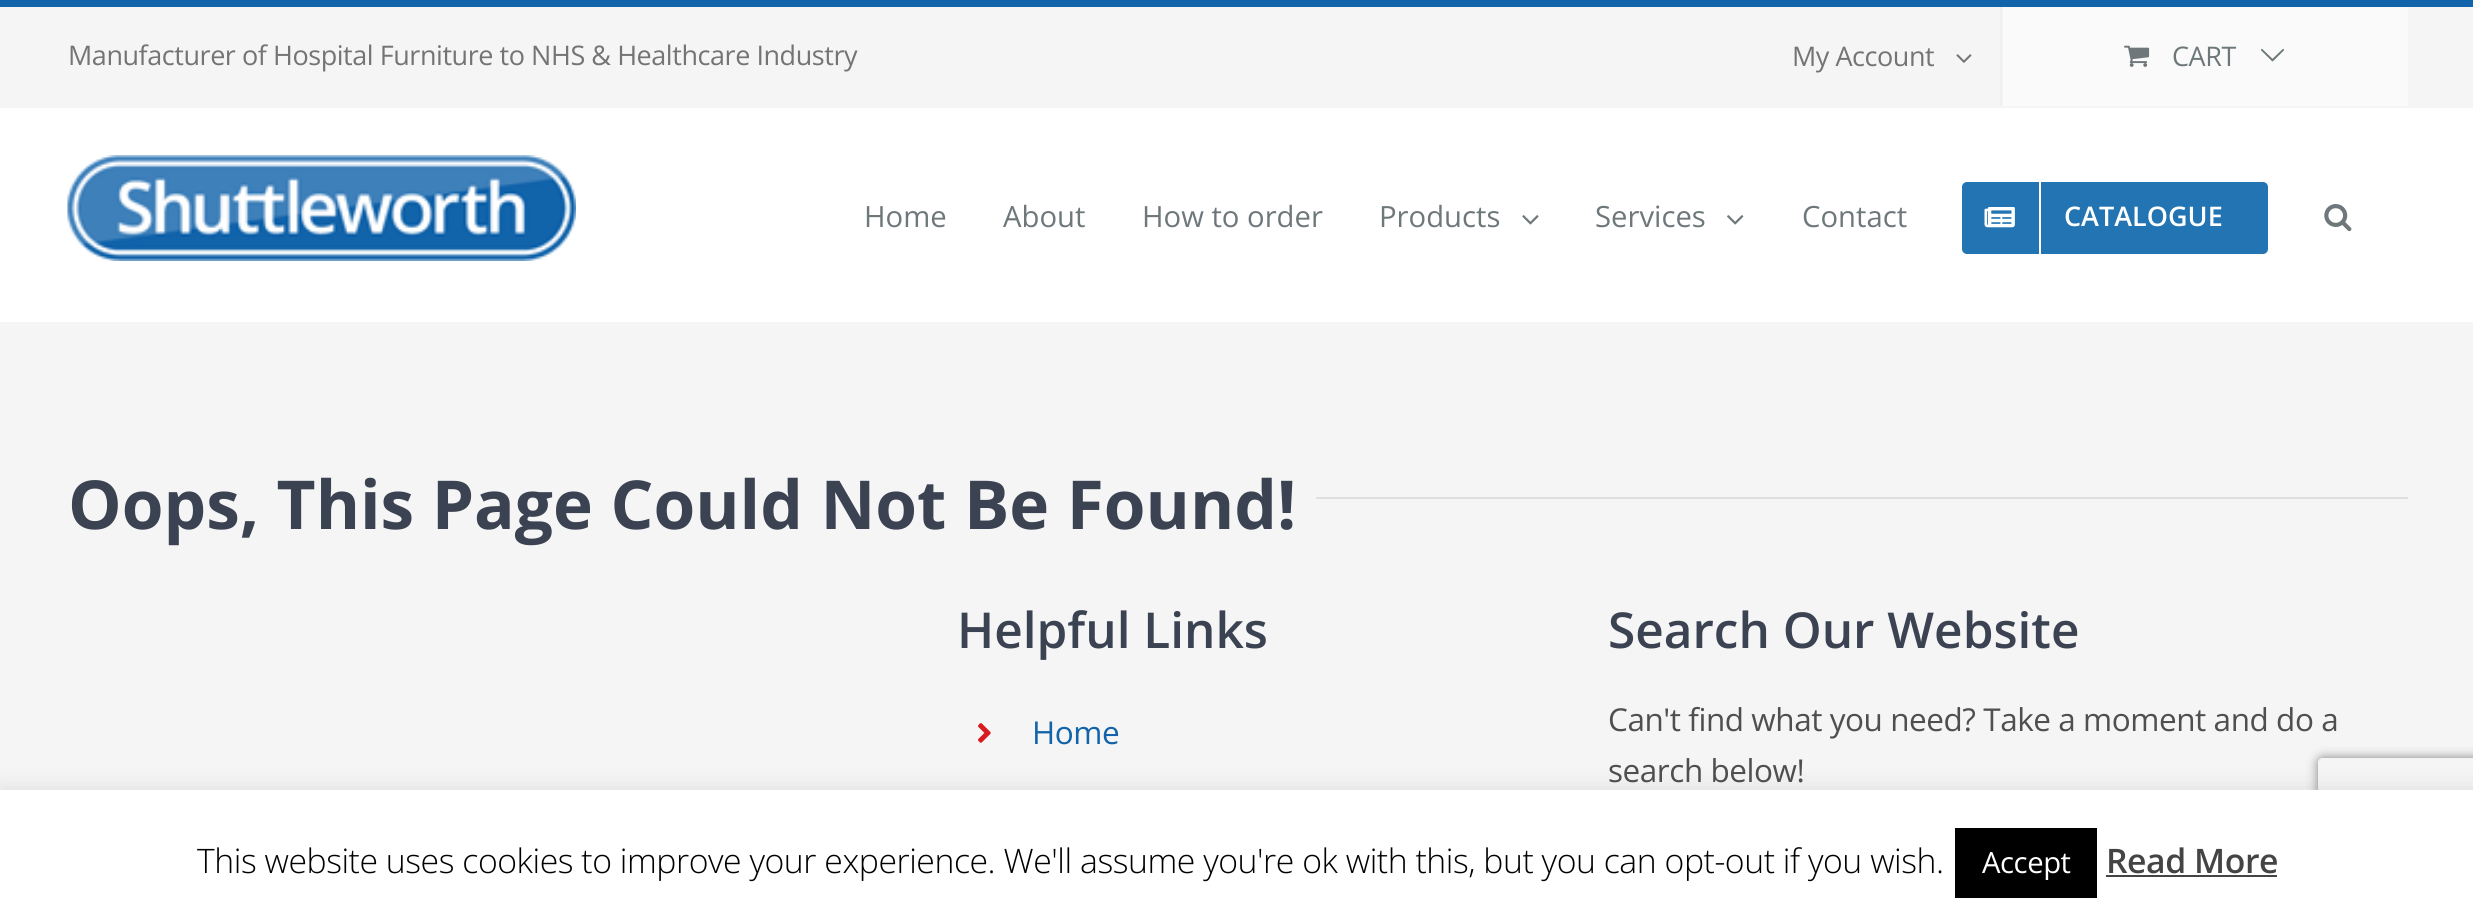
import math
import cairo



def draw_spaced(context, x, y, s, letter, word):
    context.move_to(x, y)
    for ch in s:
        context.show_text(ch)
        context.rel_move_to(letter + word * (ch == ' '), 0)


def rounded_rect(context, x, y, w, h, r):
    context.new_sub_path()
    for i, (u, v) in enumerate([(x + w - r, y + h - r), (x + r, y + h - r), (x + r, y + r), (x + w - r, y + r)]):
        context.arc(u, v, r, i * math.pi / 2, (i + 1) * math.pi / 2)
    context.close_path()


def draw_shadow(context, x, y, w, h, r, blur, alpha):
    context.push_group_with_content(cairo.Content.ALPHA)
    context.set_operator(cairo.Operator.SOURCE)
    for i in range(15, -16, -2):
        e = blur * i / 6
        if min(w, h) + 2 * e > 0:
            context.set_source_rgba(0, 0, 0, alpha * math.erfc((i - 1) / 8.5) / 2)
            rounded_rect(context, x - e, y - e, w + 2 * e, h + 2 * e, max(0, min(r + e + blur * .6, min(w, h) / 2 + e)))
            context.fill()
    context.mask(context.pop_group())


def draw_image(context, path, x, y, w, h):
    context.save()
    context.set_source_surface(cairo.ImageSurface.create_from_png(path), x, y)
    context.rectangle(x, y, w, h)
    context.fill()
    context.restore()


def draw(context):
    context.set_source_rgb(245 / 255, 245 / 255, 245 / 255)
    context.paint()
    context.set_source_rgb(17 / 255, 99 / 255, 170 / 255)
    context.rectangle(0, 0, 2473, 7)
    context.fill()
    draw_image(context, "images/1.png", 1956, 54, 16, 9)
    context.set_source_rgb(239 / 255, 239 / 255, 239 / 255)
    context.rectangle(2000, 7, 2, 99)
    context.fill()
    context.set_source_rgb(250 / 255, 250 / 255, 250 / 255)
    context.rectangle(2003, 7, 405, 99)
    context.fill()
    draw_image(context, "images/2.png", 2124, 45, 26, 22)
    draw_image(context, "images/3.png", 2261, 48, 23, 14)
    context.set_source_rgb(1, 1, 1)
    context.rectangle(0, 108, 2473, 214)
    context.fill()
    draw_image(context, "images/4.png", 67, 155, 509, 106)
    draw_image(context, "images/5.png", 1522, 215, 17, 10)
    draw_image(context, "images/6.png", 1727, 215, 17, 10)
    context.set_source_rgb(34 / 255, 116 / 255, 178 / 255)
    rounded_rect(context, 1962, 182, 306, 72, 5)
    context.fill()
    context.set_source_rgb(1, 1, 1)
    context.rectangle(2039, 182, 2, 72)
    context.fill()
    draw_image(context, "images/7.png", 1984, 207, 31, 21)
    draw_image(context, "images/8.png", 2324, 204, 28, 28)
    context.set_source_rgb(224 / 255, 222 / 255, 222 / 255)
    context.rectangle(1316, 497, 1092, 2)
    context.fill()
    draw_image(context, "images/9.png", 978, 723, 13, 20)
    context.set_source_rgb(172 / 255, 171 / 255, 171 / 255)
    draw_shadow(context, 0, 788, 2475, 135, 0, 11, 0.3)
    context.save()
    context.set_fill_rule(cairo.FillRule.EVEN_ODD)
    context.new_path()
    context.move_to(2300, 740)
    context.line_to(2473, 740)
    context.line_to(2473, 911)
    context.line_to(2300, 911)
    context.close_path()
    context.move_to(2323, 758)
    context.line_to(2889, 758)
    context.curve_to(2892, 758, 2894, 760, 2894, 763)
    context.line_to(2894, 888)
    context.curve_to(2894, 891, 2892, 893, 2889, 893)
    context.line_to(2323, 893)
    context.curve_to(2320, 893, 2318, 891, 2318, 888)
    context.line_to(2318, 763)
    context.curve_to(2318, 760, 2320, 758, 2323, 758)
    context.close_path()
    context.clip()
    context.set_source_rgb(128 / 255, 128 / 255, 128 / 255)
    draw_shadow(context, 2318, 758, 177, 135, 5, 5.5, 1)
    context.restore()
    context.set_source_rgb(1, 1, 1)
    context.rectangle(0, 790, 2473, 134)
    context.fill()
    context.set_source_rgb(0, 0, 0)
    context.rectangle(1955, 828, 142, 70)
    context.fill()
    context.set_source_rgb(68 / 255, 68 / 255, 68 / 255)
    context.rectangle(2106, 875, 171, 2)
    context.fill()
    context.select_font_face("Open Sans")
    context.set_font_size(27)
    context.set_source_rgb(116 / 255, 116 / 255, 116 / 255)
    draw_spaced(context, 68, 65, "Manufacturer of Hospital Furniture to NHS & Healthcare Industry", -0.45, 0)
    draw_spaced(context, 1792, 66, "My Account", -0.45, 0)
    context.set_source_rgb(110 / 255, 119 / 255, 122 / 255)
    draw_spaced(context, 2172, 66, "CART", -0.45, 0)
    context.set_font_size(29.25)
    context.move_to(864, 227)
    context.show_text("Home")
    context.move_to(1003, 227)
    context.show_text("About")
    context.move_to(1142, 227)
    context.show_text("How to order")
    context.move_to(1379, 227)
    context.show_text("Products")
    context.move_to(1595, 227)
    context.show_text("Services")
    context.move_to(1802, 227)
    context.show_text("Contact")
    context.select_font_face("Open Sans SemiBold")
    context.set_font_size(27)
    context.set_source_rgb(1, 1, 1)
    context.move_to(2064, 226)
    context.show_text("CATALOGUE")
    context.select_font_face("Open Sans", cairo.FontSlant.NORMAL, cairo.FontWeight.BOLD)
    context.set_font_size(67.5)
    context.set_source_rgb(59 / 255, 66 / 255, 81 / 255)
    context.move_to(68, 529)
    context.show_text("Oops, This Page Could Not Be Found!")
    context.select_font_face("Open Sans SemiBold")
    context.set_font_size(49.5)
    context.move_to(957, 648)
    context.show_text("Helpful Links")
    context.select_font_face("Open Sans")
    context.set_font_size(31.5)
    context.set_source_rgb(17 / 255, 99 / 255, 170 / 255)
    draw_spaced(context, 1032, 744, "Home", -0.45, 0)
    context.select_font_face("Open Sans SemiBold")
    context.set_font_size(49.5)
    context.set_source_rgb(59 / 255, 66 / 255, 81 / 255)
    context.move_to(1608, 648)
    context.show_text("Search Our Website")
    context.select_font_face("Open Sans")
    context.set_font_size(31.5)
    context.set_source_rgb(79 / 255, 79 / 255, 79 / 255)
    draw_spaced(context, 1608, 731, "Can't find what you need? Take a moment and do a", -0.45, 0)
    draw_spaced(context, 1608, 782, "search below!", -0.45, 0)
    context.select_font_face("Open Sans Light")
    context.set_font_size(33.75)
    context.set_source_rgb(0, 0, 0)
    draw_spaced(context, 197, 873, "This website uses cookies to improve your experience. We'll assume you're ok with this, but you can opt-out if you wish.", -0.45, 0)
    context.select_font_face("Open Sans")
    context.set_font_size(29.25)
    context.set_source_rgb(1, 1, 1)
    draw_spaced(context, 1982, 873, "Accept", -0.45, 0)
    context.select_font_face("Open Sans SemiBold")
    context.set_font_size(33.75)
    context.set_source_rgb(68 / 255, 68 / 255, 68 / 255)
    draw_spaced(context, 2106, 873, "Read More", -0.45, 0)


surface = cairo.ImageSurface(cairo.Format.RGB24, 2473, 924)
context = cairo.Context(surface)
options = cairo.FontOptions()
options.set_hint_metrics(cairo.HintMetrics.OFF)
options.set_hint_style(cairo.HintStyle.NONE)
context.set_font_options(options)
context.set_miter_limit(4)
draw(context)
surface.write_to_png("out.png")
